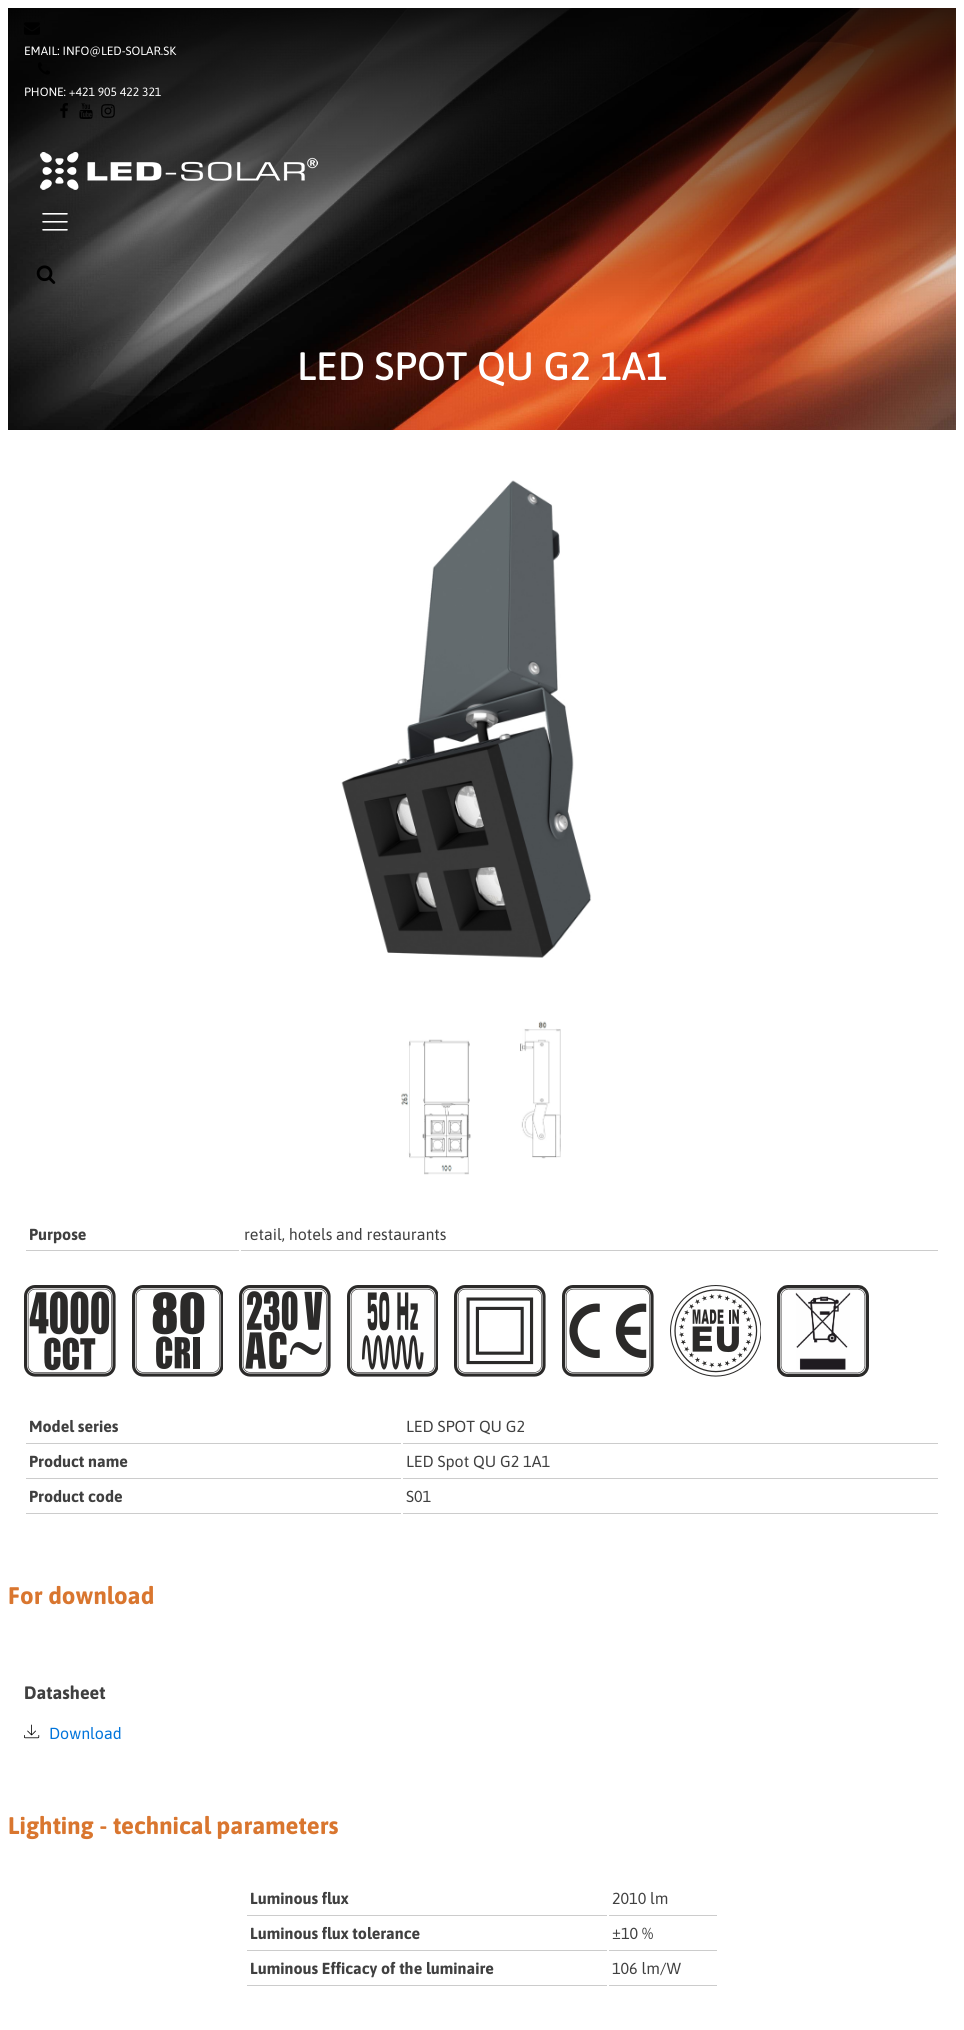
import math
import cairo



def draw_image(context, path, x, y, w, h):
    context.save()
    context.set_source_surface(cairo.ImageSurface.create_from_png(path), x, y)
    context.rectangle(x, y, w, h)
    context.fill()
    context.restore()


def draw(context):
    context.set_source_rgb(1, 1, 1)
    context.paint()
    draw_image(context, "images/1.png", 8, 8, 948, 422)
    draw_image(context, "images/2.png", 24, 22, 16, 13)
    draw_image(context, "images/3.png", 38, 62, 12, 13)
    draw_image(context, "images/4.png", 60, 103, 8, 15)
    draw_image(context, "images/5.png", 79, 103, 14, 16)
    draw_image(context, "images/6.png", 101, 104, 14, 14)
    draw_image(context, "images/7.png", 40, 152, 278, 38)
    draw_image(context, "images/8.png", 42, 213, 26, 18)
    draw_image(context, "images/9.png", 36, 265, 20, 19)
    draw_image(context, "images/10.png", 341, 480, 251, 478)
    draw_image(context, "images/11.png", 401, 1021, 160, 154)
    context.set_source_rgb(204 / 255, 204 / 255, 204 / 255)
    context.rectangle(26, 1250, 213, 1)
    context.fill()
    context.rectangle(241, 1250, 697, 1)
    context.fill()
    draw_image(context, "images/12.png", 24, 1285, 92, 92)
    draw_image(context, "images/13.png", 132, 1285, 91, 92)
    draw_image(context, "images/14.png", 239, 1285, 92, 92)
    draw_image(context, "images/15.png", 347, 1285, 91, 92)
    draw_image(context, "images/16.png", 454, 1285, 92, 92)
    draw_image(context, "images/17.png", 562, 1285, 92, 92)
    draw_image(context, "images/18.png", 670, 1285, 91, 92)
    draw_image(context, "images/19.png", 777, 1285, 92, 92)
    context.rectangle(26, 1443, 375, 1)
    context.fill()
    context.rectangle(403, 1443, 535, 1)
    context.fill()
    context.rectangle(26, 1478, 375, 1)
    context.fill()
    context.rectangle(403, 1478, 535, 1)
    context.fill()
    context.rectangle(26, 1513, 375, 1)
    context.fill()
    context.rectangle(403, 1513, 535, 1)
    context.fill()
    draw_image(context, "images/20.png", 24, 1724, 16, 15)
    context.rectangle(247, 1915, 360, 1)
    context.fill()
    context.rectangle(609, 1915, 108, 1)
    context.fill()
    context.rectangle(247, 1950, 360, 1)
    context.fill()
    context.rectangle(609, 1950, 108, 1)
    context.fill()
    context.rectangle(247, 1985, 360, 1)
    context.fill()
    context.rectangle(609, 1985, 108, 1)
    context.fill()
    context.select_font_face("Asap")
    context.set_font_size(12)
    context.set_source_rgb(1, 1, 1)
    context.move_to(24, 55)
    context.show_text("EMAIL: INFO@LED-SOLAR.SK")
    context.move_to(24, 96)
    context.show_text("PHONE: +421 905 422 321")
    context.select_font_face("Asap Medium")
    context.set_font_size(39.5)
    context.move_to(297, 380)
    context.show_text("LED SPOT QU G2 1A1")
    context.select_font_face("Asap", cairo.FontSlant.NORMAL, cairo.FontWeight.BOLD)
    context.set_font_size(16)
    context.set_source_rgb(64 / 255, 64 / 255, 64 / 255)
    context.move_to(29, 1240)
    context.show_text("Purpose")
    context.select_font_face("Asap")
    context.move_to(244, 1240)
    context.show_text("retail, hotels and restaurants")
    context.select_font_face("Asap", cairo.FontSlant.NORMAL, cairo.FontWeight.BOLD)
    context.move_to(29, 1432)
    context.show_text("Model series")
    context.select_font_face("Asap")
    context.move_to(406, 1432)
    context.show_text("LED SPOT QU G2")
    context.select_font_face("Asap", cairo.FontSlant.NORMAL, cairo.FontWeight.BOLD)
    context.move_to(29, 1467)
    context.show_text("Product name")
    context.select_font_face("Asap")
    context.move_to(406, 1467)
    context.show_text("LED Spot QU G2 1A1")
    context.select_font_face("Asap", cairo.FontSlant.NORMAL, cairo.FontWeight.BOLD)
    context.move_to(29, 1502)
    context.show_text("Product code")
    context.select_font_face("Asap")
    context.move_to(406, 1502)
    context.show_text("S01")
    context.select_font_face("Asap", cairo.FontSlant.NORMAL, cairo.FontWeight.BOLD)
    context.set_font_size(24)
    context.set_source_rgb(217 / 255, 118 / 255, 47 / 255)
    context.move_to(8, 1604)
    context.show_text("For download")
    context.set_font_size(18)
    context.set_source_rgb(64 / 255, 64 / 255, 64 / 255)
    context.move_to(24, 1699)
    context.show_text("Datasheet")
    context.select_font_face("Asap")
    context.set_font_size(16)
    context.set_source_rgb(0, 116 / 255, 219 / 255)
    context.move_to(49, 1739)
    context.show_text("Download")
    context.select_font_face("Asap", cairo.FontSlant.NORMAL, cairo.FontWeight.BOLD)
    context.set_font_size(24)
    context.set_source_rgb(217 / 255, 118 / 255, 47 / 255)
    context.move_to(8, 1834)
    context.show_text("Lighting - technical parameters")
    context.set_font_size(16)
    context.set_source_rgb(64 / 255, 64 / 255, 64 / 255)
    context.move_to(250, 1904)
    context.show_text("Luminous flux")
    context.select_font_face("Asap")
    context.move_to(612, 1904)
    context.show_text("2010 lm")
    context.select_font_face("Asap", cairo.FontSlant.NORMAL, cairo.FontWeight.BOLD)
    context.move_to(250, 1939)
    context.show_text("Luminous flux tolerance")
    context.select_font_face("Asap")
    context.move_to(612, 1939)
    context.show_text("±10 %")
    context.select_font_face("Asap", cairo.FontSlant.NORMAL, cairo.FontWeight.BOLD)
    context.move_to(250, 1974)
    context.show_text("Luminous Efficacy of the luminaire")
    context.select_font_face("Asap")
    context.move_to(612, 1974)
    context.show_text("106 lm/W")


surface = cairo.ImageSurface(cairo.Format.RGB24, 964, 2030)
context = cairo.Context(surface)
options = cairo.FontOptions()
options.set_hint_metrics(cairo.HintMetrics.OFF)
options.set_hint_style(cairo.HintStyle.NONE)
context.set_font_options(options)
context.set_miter_limit(4)
draw(context)
surface.write_to_png("out.png")
